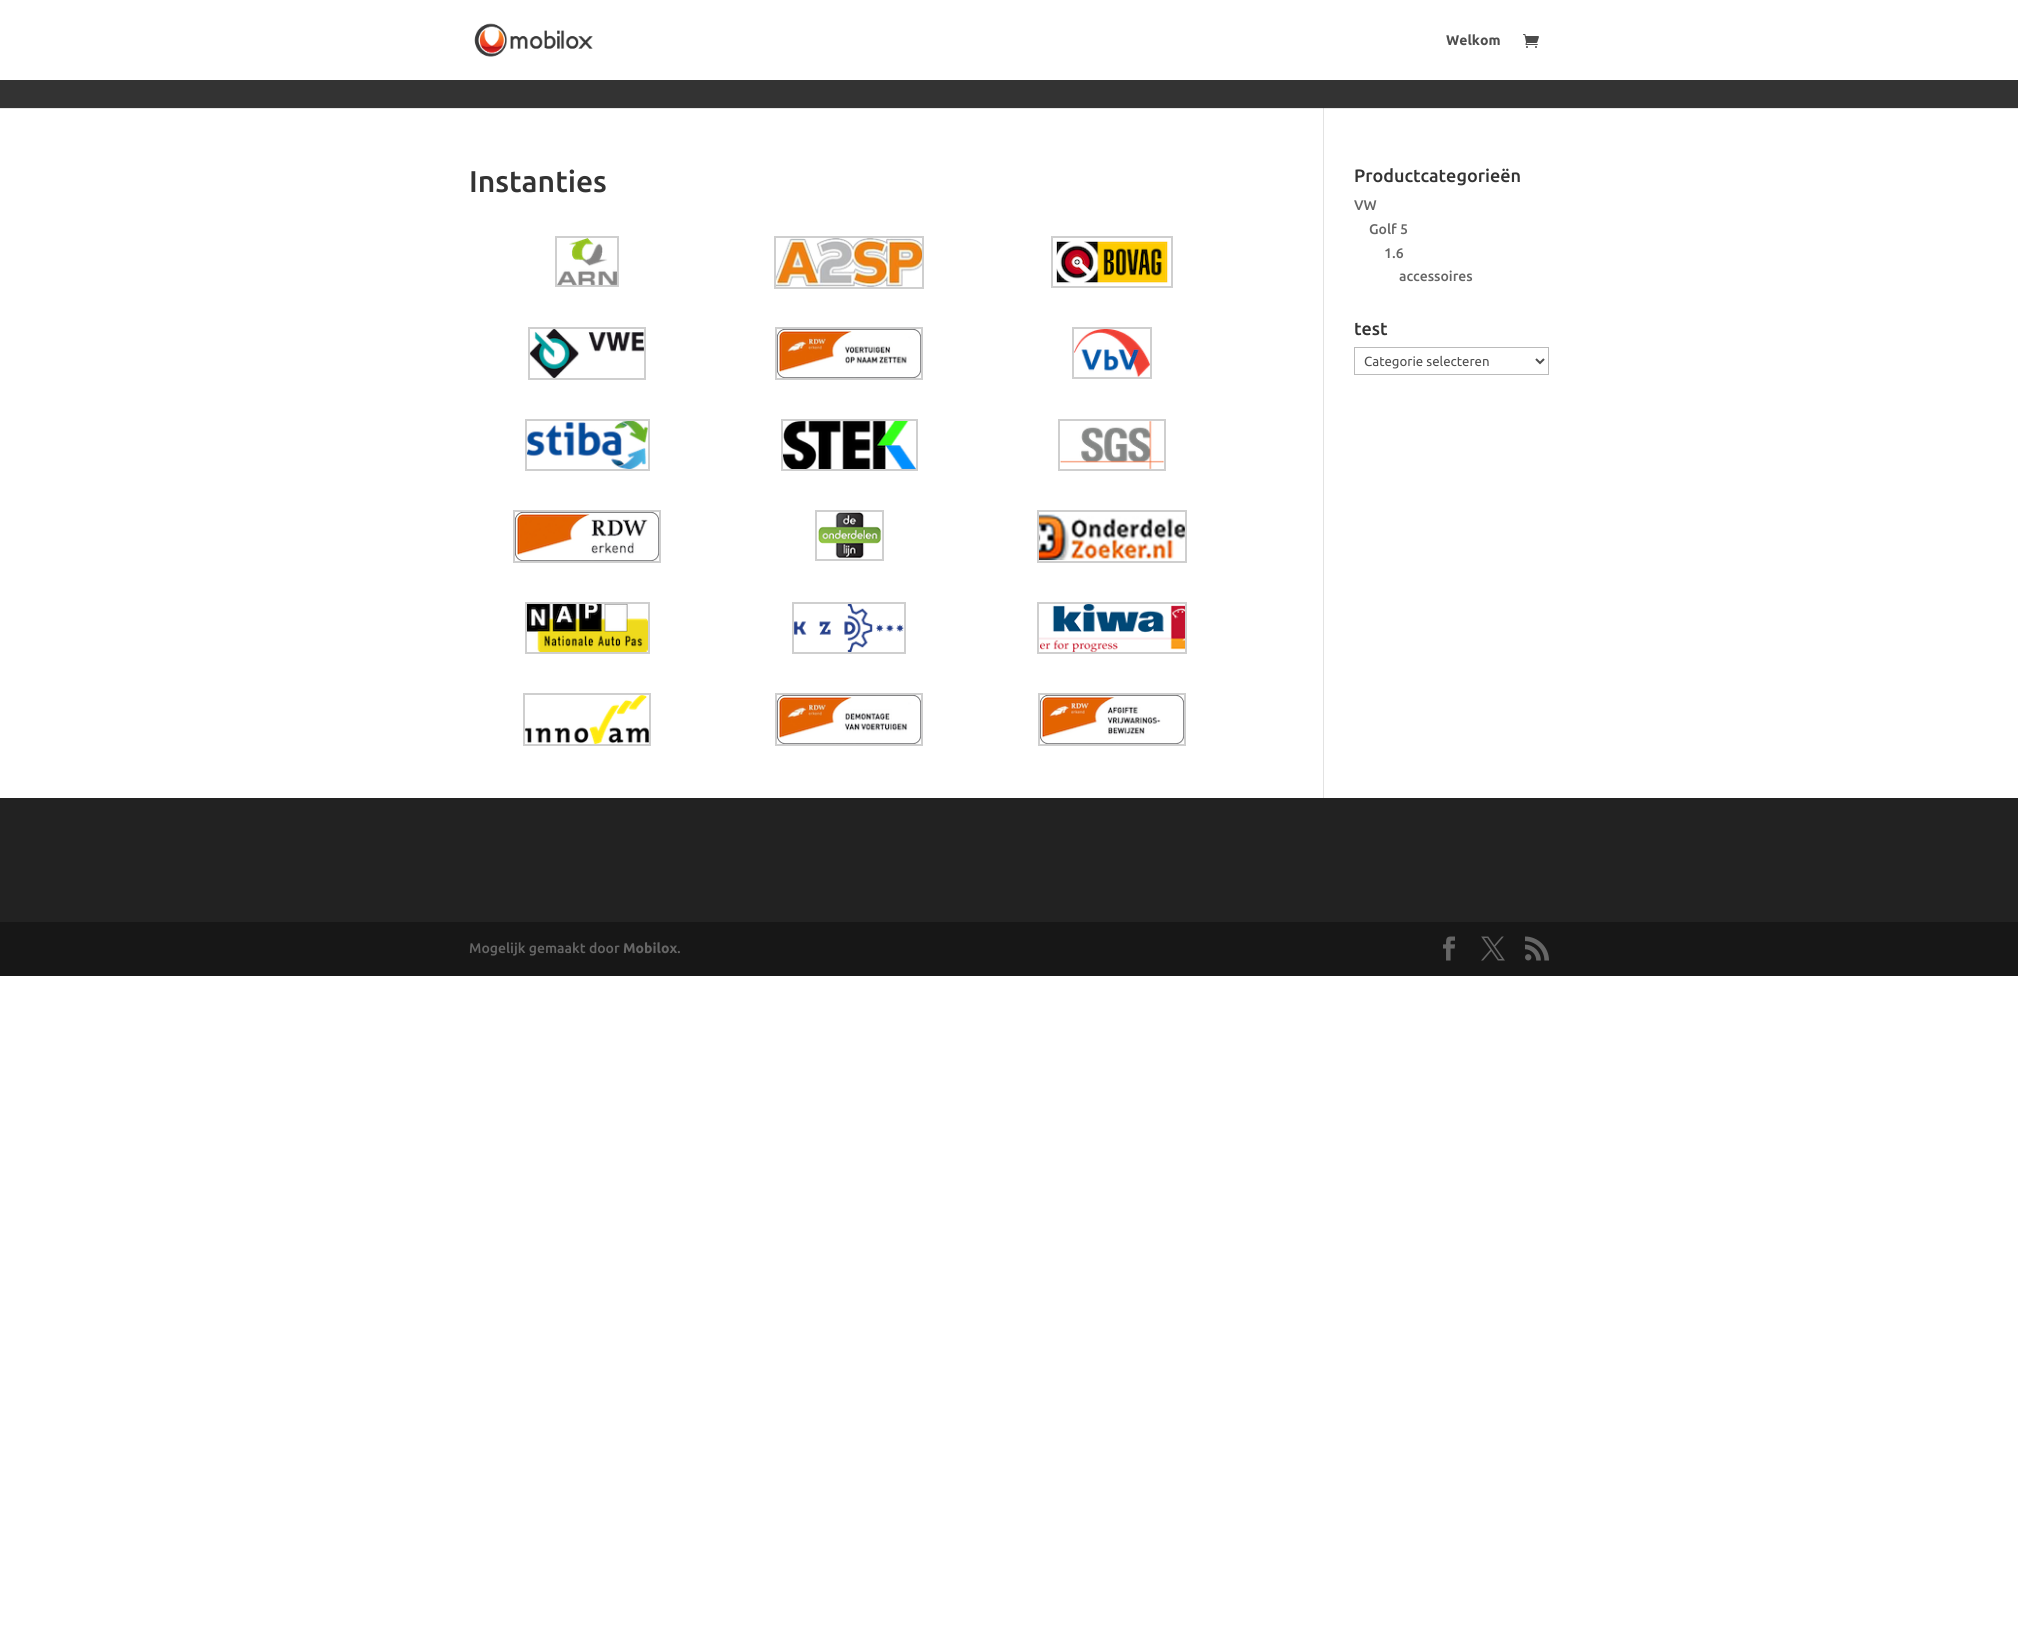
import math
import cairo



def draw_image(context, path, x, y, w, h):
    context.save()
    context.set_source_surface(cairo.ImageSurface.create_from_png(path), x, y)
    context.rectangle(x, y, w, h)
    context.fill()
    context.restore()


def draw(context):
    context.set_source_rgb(1, 1, 1)
    context.paint()
    context.set_source_rgb(230 / 255, 230 / 255, 230 / 255)
    context.rectangle(0, 108, 2018, 1)
    context.fill()
    draw_image(context, "images/1.png", 474, 23, 119, 34)
    draw_image(context, "images/2.png", 1523, 34, 16, 14)
    context.set_source_rgb(51 / 255, 51 / 255, 51 / 255)
    context.rectangle(0, 80, 2018, 28)
    context.fill()
    context.set_source_rgb(226 / 255, 226 / 255, 226 / 255)
    context.rectangle(1323, 108, 1, 690)
    context.fill()
    context.set_source_rgb(203 / 255, 203 / 255, 203 / 255)
    context.rectangle(1323, 108, 1, 1)
    context.fill()
    context.rectangle(556, 237, 62, 49)
    context.set_source_rgb(207 / 255, 207 / 255, 207 / 255)
    context.stroke()
    draw_image(context, "images/3.png", 557, 238, 60, 47)
    context.rectangle(775, 237, 148, 51)
    context.stroke()
    draw_image(context, "images/4.png", 776, 238, 146, 49)
    context.rectangle(1052, 237, 120, 50)
    context.stroke()
    draw_image(context, "images/5.png", 1056, 241, 113, 43)
    context.rectangle(529, 328, 116, 51)
    context.stroke()
    draw_image(context, "images/6.png", 530, 329, 114, 49)
    context.rectangle(776, 328, 146, 51)
    context.stroke()
    draw_image(context, "images/7.png", 777, 329, 144, 49)
    context.rectangle(1073, 328, 78, 50)
    context.stroke()
    draw_image(context, "images/8.png", 1074, 329, 76, 48)
    context.rectangle(526, 420, 123, 50)
    context.stroke()
    draw_image(context, "images/9.png", 527, 421, 121, 48)
    context.rectangle(782, 420, 135, 50)
    context.stroke()
    draw_image(context, "images/10.png", 783, 421, 133, 48)
    context.rectangle(1059, 420, 106, 50)
    context.stroke()
    draw_image(context, "images/11.png", 1060, 421, 104, 48)
    context.rectangle(514, 511, 146, 51)
    context.stroke()
    draw_image(context, "images/12.png", 515, 512, 144, 49)
    context.rectangle(816, 511, 67, 49)
    context.stroke()
    draw_image(context, "images/13.png", 818, 512, 64, 47)
    context.rectangle(1038, 511, 148, 51)
    context.stroke()
    draw_image(context, "images/14.png", 1039, 514, 146, 47)
    context.rectangle(526, 603, 123, 50)
    context.stroke()
    draw_image(context, "images/15.png", 527, 604, 121, 48)
    context.rectangle(793, 603, 112, 50)
    context.stroke()
    draw_image(context, "images/16.png", 794, 604, 110, 48)
    context.rectangle(1038, 603, 148, 50)
    context.stroke()
    draw_image(context, "images/17.png", 1039, 604, 146, 48)
    context.rectangle(524, 694, 126, 51)
    context.stroke()
    draw_image(context, "images/18.png", 525, 695, 124, 49)
    context.rectangle(776, 694, 146, 51)
    context.stroke()
    draw_image(context, "images/19.png", 777, 695, 144, 49)
    context.rectangle(1039, 694, 146, 51)
    context.stroke()
    draw_image(context, "images/20.png", 1040, 695, 144, 49)
    context.rectangle(1354.5, 347.5, 194, 27)
    context.set_source_rgb(187 / 255, 187 / 255, 187 / 255)
    context.set_line_width(1)
    context.stroke()
    context.new_path()
    context.move_to(1536, 359)
    context.line_to(1540, 363)
    context.line_to(1544, 359)
    context.set_source_rgb(78 / 255, 78 / 255, 78 / 255)
    context.set_line_width(2)
    context.stroke()
    context.set_source_rgb(34 / 255, 34 / 255, 34 / 255)
    context.rectangle(0, 798, 2018, 124)
    context.fill()
    context.set_source_rgb(23 / 255, 23 / 255, 23 / 255)
    context.rectangle(0, 922, 2018, 54)
    context.fill()
    draw_image(context, "images/21.png", 1443, 936, 12, 25)
    draw_image(context, "images/22.png", 1481, 936, 24, 25)
    draw_image(context, "images/23.png", 1525, 936, 24, 25)
    context.select_font_face("Ubuntu", cairo.FontSlant.NORMAL, cairo.FontWeight.BOLD)
    context.set_font_size(14)
    context.set_source_rgb(78 / 255, 78 / 255, 78 / 255)
    context.move_to(1446, 45)
    context.show_text("Welkom")
    context.select_font_face("Ubuntu Medium")
    context.set_font_size(30)
    context.set_source_rgb(51 / 255, 51 / 255, 51 / 255)
    context.move_to(469, 192)
    context.show_text("Instanties")
    context.set_font_size(18)
    context.move_to(1354, 182)
    context.show_text("Productcategorieën")
    context.set_font_size(14)
    context.set_source_rgb(102 / 255, 102 / 255, 102 / 255)
    context.move_to(1354, 210)
    context.show_text("VW")
    context.move_to(1369, 234)
    context.show_text("Golf 5")
    context.move_to(1384, 258)
    context.show_text("1.6")
    context.move_to(1399, 281)
    context.show_text("accessoires")
    context.set_font_size(18)
    context.set_source_rgb(51 / 255, 51 / 255, 51 / 255)
    context.move_to(1354, 335)
    context.show_text("test")
    context.select_font_face("Ubuntu")
    context.set_font_size(13.25)
    context.set_source_rgb(78 / 255, 78 / 255, 78 / 255)
    context.move_to(1364, 366)
    context.show_text("Categorie selecteren")
    context.select_font_face("Ubuntu Medium")
    context.set_font_size(14)
    context.set_source_rgb(102 / 255, 102 / 255, 102 / 255)
    context.move_to(469, 953)
    context.show_text("Mogelijk gemaakt door")
    context.select_font_face("Ubuntu", cairo.FontSlant.NORMAL, cairo.FontWeight.BOLD)
    context.move_to(623, 953)
    context.show_text("Mobilox")
    context.select_font_face("Ubuntu Medium")
    context.move_to(677, 953)
    context.show_text(".")


surface = cairo.ImageSurface(cairo.Format.RGB24, 2018, 1640)
context = cairo.Context(surface)
options = cairo.FontOptions()
options.set_hint_metrics(cairo.HintMetrics.OFF)
options.set_hint_style(cairo.HintStyle.NONE)
context.set_font_options(options)
context.set_miter_limit(4)
draw(context)
surface.write_to_png("out.png")
